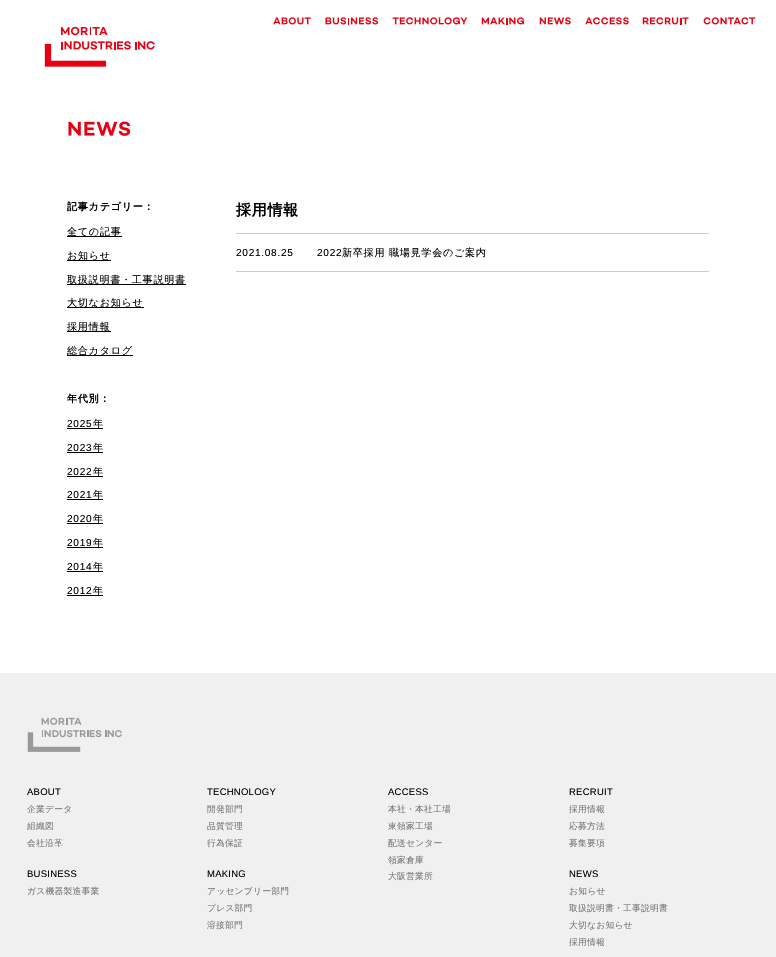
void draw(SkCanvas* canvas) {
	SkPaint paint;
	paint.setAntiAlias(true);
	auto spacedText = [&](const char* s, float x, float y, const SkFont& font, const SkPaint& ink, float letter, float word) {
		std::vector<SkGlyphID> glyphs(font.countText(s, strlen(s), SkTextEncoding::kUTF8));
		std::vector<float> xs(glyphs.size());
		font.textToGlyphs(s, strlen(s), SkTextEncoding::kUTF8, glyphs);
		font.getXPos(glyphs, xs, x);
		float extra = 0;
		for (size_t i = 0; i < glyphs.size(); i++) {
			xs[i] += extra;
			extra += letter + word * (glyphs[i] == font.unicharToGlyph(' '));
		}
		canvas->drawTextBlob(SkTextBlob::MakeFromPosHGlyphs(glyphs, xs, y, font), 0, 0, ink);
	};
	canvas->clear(0xffffffff);
	canvas->drawImageRect(SkImages::DeferredFromEncodedData(SkData::MakeFromFileName("img1.png")), SkRect::MakeXYWH(273, 17, 38, 8), SkSamplingOptions());
	canvas->drawImageRect(SkImages::DeferredFromEncodedData(SkData::MakeFromFileName("img2.png")), SkRect::MakeXYWH(325, 17, 53, 8), SkSamplingOptions());
	canvas->drawImageRect(SkImages::DeferredFromEncodedData(SkData::MakeFromFileName("img3.png")), SkRect::MakeXYWH(392, 17, 76, 8), SkSamplingOptions());
	canvas->drawImageRect(SkImages::DeferredFromEncodedData(SkData::MakeFromFileName("img4.png")), SkRect::MakeXYWH(481, 17, 44, 8), SkSamplingOptions());
	canvas->drawImageRect(SkImages::DeferredFromEncodedData(SkData::MakeFromFileName("img5.png")), SkRect::MakeXYWH(539, 17, 32, 8), SkSamplingOptions());
	canvas->drawImageRect(SkImages::DeferredFromEncodedData(SkData::MakeFromFileName("img6.png")), SkRect::MakeXYWH(585, 17, 44, 8), SkSamplingOptions());
	canvas->drawImageRect(SkImages::DeferredFromEncodedData(SkData::MakeFromFileName("img7.png")), SkRect::MakeXYWH(642, 17, 47, 8), SkSamplingOptions());
	canvas->drawImageRect(SkImages::DeferredFromEncodedData(SkData::MakeFromFileName("img8.png")), SkRect::MakeXYWH(703, 17, 53, 8), SkSamplingOptions());
	canvas->drawImageRect(SkImages::DeferredFromEncodedData(SkData::MakeFromFileName("img9.png")), SkRect::MakeXYWH(44, 26, 111, 41), SkSamplingOptions());
	canvas->drawImageRect(SkImages::DeferredFromEncodedData(SkData::MakeFromFileName("img10.png")), SkRect::MakeXYWH(68, 121, 63, 15), SkSamplingOptions());
	SkFont f1(fontMgr->matchFamilyStyle("WenQuanYi Zen Hei", SkFontStyle::Bold()), 10.1);
	f1.setSubpixel(true);
	paint.setColor(0xff000000);
	spacedText("記事カテゴリー：", 67, 210, f1, paint, 0.7, 0);
	canvas->drawRect(SkRect::MakeXYWH(67, 236, 55, 1), paint);
	SkFont f2(fontMgr->matchFamilyStyle("WenQuanYi Zen Hei", SkFontStyle(500, SkFontStyle::kNormal_Width, SkFontStyle::kUpright_Slant)), 10.1);
	f2.setSubpixel(true);
	spacedText("全ての記事", 67, 235, f2, paint, 0.7, 0);
	canvas->drawRect(SkRect::MakeXYWH(67, 260, 44, 1), paint);
	spacedText("お知らせ", 67, 259, f2, paint, 0.7, 0);
	canvas->drawRect(SkRect::MakeXYWH(67, 284, 119, 1), paint);
	spacedText("取扱説明書・工事説明書", 67, 283, f2, paint, 0.7, 0);
	canvas->drawRect(SkRect::MakeXYWH(67, 307, 77, 1), paint);
	spacedText("大切なお知らせ", 67, 306, f2, paint, 0.7, 0);
	canvas->drawRect(SkRect::MakeXYWH(67, 331, 44, 1), paint);
	spacedText("採用情報", 67, 330, f2, paint, 0.7, 0);
	canvas->drawRect(SkRect::MakeXYWH(67, 355, 66, 1), paint);
	spacedText("総合カタログ", 67, 354, f2, paint, 0.7, 0);
	spacedText("年代別：", 67, 402, f1, paint, 0.7, 0);
	SkFont f3(fontMgr->matchFamilyStyle("Liberation Sans", SkFontStyle::Normal()), 10.1);
	f3.setSubpixel(true);
	spacedText("2025", 67, 427, f3, paint, 0.7, 0);
	canvas->drawRect(SkRect::MakeXYWH(67, 428, 36, 1), paint);
	spacedText("年", 93, 427, f2, paint, 0.7, 0);
	spacedText("2023", 67, 451, f3, paint, 0.7, 0);
	canvas->drawRect(SkRect::MakeXYWH(67, 452, 36, 1), paint);
	spacedText("年", 93, 451, f2, paint, 0.7, 0);
	spacedText("2022", 67, 475, f3, paint, 0.7, 0);
	canvas->drawRect(SkRect::MakeXYWH(67, 476, 36, 1), paint);
	spacedText("年", 93, 475, f2, paint, 0.7, 0);
	spacedText("2021", 67, 498, f3, paint, 0.7, 0);
	canvas->drawRect(SkRect::MakeXYWH(67, 499, 36, 1), paint);
	spacedText("年", 93, 498, f2, paint, 0.7, 0);
	spacedText("2020", 67, 522, f3, paint, 0.7, 0);
	canvas->drawRect(SkRect::MakeXYWH(67, 523, 36, 1), paint);
	spacedText("年", 93, 522, f2, paint, 0.7, 0);
	spacedText("2019", 67, 546, f3, paint, 0.7, 0);
	canvas->drawRect(SkRect::MakeXYWH(67, 547, 36, 1), paint);
	spacedText("年", 93, 546, f2, paint, 0.7, 0);
	spacedText("2014", 67, 570, f3, paint, 0.7, 0);
	canvas->drawRect(SkRect::MakeXYWH(67, 571, 36, 1), paint);
	spacedText("年", 93, 570, f2, paint, 0.7, 0);
	spacedText("2012", 67, 594, f3, paint, 0.7, 0);
	canvas->drawRect(SkRect::MakeXYWH(67, 595, 36, 1), paint);
	spacedText("年", 93, 594, f2, paint, 0.7, 0);
	SkFont f4(fontMgr->matchFamilyStyle("WenQuanYi Zen Hei", SkFontStyle::Bold()), 15);
	f4.setSubpixel(true);
	spacedText("採用情報", 236, 215, f4, paint, 0.7, 0);
	paint.setColor(0xffcccccc);
	canvas->drawRect(SkRect::MakeXYWH(236, 233, 473, 1), paint);
	canvas->drawRect(SkRect::MakeXYWH(236, 271, 473, 1), paint);
	paint.setColor(0xff000000);
	spacedText("2021.08.25", 236, 256, f3, paint, 0.7, 0);
	spacedText("2022", 317, 256, f3, paint, 0.7, 0);
	spacedText("新卒採用 職場見学会のご案内", 342, 256, f2, paint, 0.7, 0);
	paint.setColor(0xfff0f0f0);
	canvas->drawRect(SkRect::MakeXYWH(0, 673, 776, 284), paint);
	canvas->drawImageRect(SkImages::DeferredFromEncodedData(SkData::MakeFromFileName("img11.png")), SkRect::MakeXYWH(27, 717, 95, 35), SkSamplingOptions());
	SkFont f5(fontMgr->matchFamilyStyle("Liberation Sans", SkFontStyle::Normal()), 9.5);
	f5.setSubpixel(true);
	paint.setColor(0xff000000);
	spacedText("ABOUT", 27, 795, f5, paint, 0.25, 0);
	SkFont f6(fontMgr->matchFamilyStyle("WenQuanYi Zen Hei", SkFontStyle(500, SkFontStyle::kNormal_Width, SkFontStyle::kUpright_Slant)), 8.75);
	f6.setSubpixel(true);
	paint.setColor(0xff777777);
	spacedText("企業データ", 27, 812, f6, paint, 0.25, 0);
	spacedText("組織図", 27, 829, f6, paint, 0.25, 0);
	spacedText("会社沿革", 27, 846, f6, paint, 0.25, 0);
	paint.setColor(0xff000000);
	spacedText("BUSINESS", 27, 877, f5, paint, 0.25, 0);
	paint.setColor(0xff777777);
	spacedText("ガス機器製造事業", 27, 894, f6, paint, 0.25, 0);
	paint.setColor(0xff000000);
	spacedText("TECHNOLOGY", 207, 795, f5, paint, 0.25, 0);
	paint.setColor(0xff777777);
	spacedText("開発部門", 207, 812, f6, paint, 0.25, 0);
	spacedText("品質管理", 207, 829, f6, paint, 0.25, 0);
	spacedText("行為保証", 207, 846, f6, paint, 0.25, 0);
	paint.setColor(0xff000000);
	spacedText("MAKING", 207, 877, f5, paint, 0.25, 0);
	paint.setColor(0xff777777);
	spacedText("アッセンブリー部門", 207, 894, f6, paint, 0.25, 0);
	spacedText("プレス部門", 207, 911, f6, paint, 0.25, 0);
	spacedText("溶接部門", 207, 928, f6, paint, 0.25, 0);
	paint.setColor(0xff000000);
	spacedText("ACCESS", 388, 795, f5, paint, 0.25, 0);
	paint.setColor(0xff777777);
	spacedText("本社・本社工場", 388, 812, f6, paint, 0.25, 0);
	spacedText("東領家工場", 388, 829, f6, paint, 0.25, 0);
	spacedText("配送センター", 388, 846, f6, paint, 0.25, 0);
	spacedText("領家倉庫", 388, 863, f6, paint, 0.25, 0);
	spacedText("大阪営業所", 388, 879, f6, paint, 0.25, 0);
	paint.setColor(0xff000000);
	spacedText("RECRUIT", 569, 795, f5, paint, 0.25, 0);
	paint.setColor(0xff777777);
	spacedText("採用情報", 569, 812, f6, paint, 0.25, 0);
	spacedText("応募方法", 569, 829, f6, paint, 0.25, 0);
	spacedText("募集要項", 569, 846, f6, paint, 0.25, 0);
	paint.setColor(0xff000000);
	spacedText("NEWS", 569, 877, f5, paint, 0.25, 0);
	paint.setColor(0xff777777);
	spacedText("お知らせ", 569, 894, f6, paint, 0.25, 0);
	spacedText("取扱説明書・工事説明書", 569, 911, f6, paint, 0.25, 0);
	spacedText("大切なお知らせ", 569, 928, f6, paint, 0.25, 0);
	spacedText("採用情報", 569, 945, f6, paint, 0.25, 0);
}
